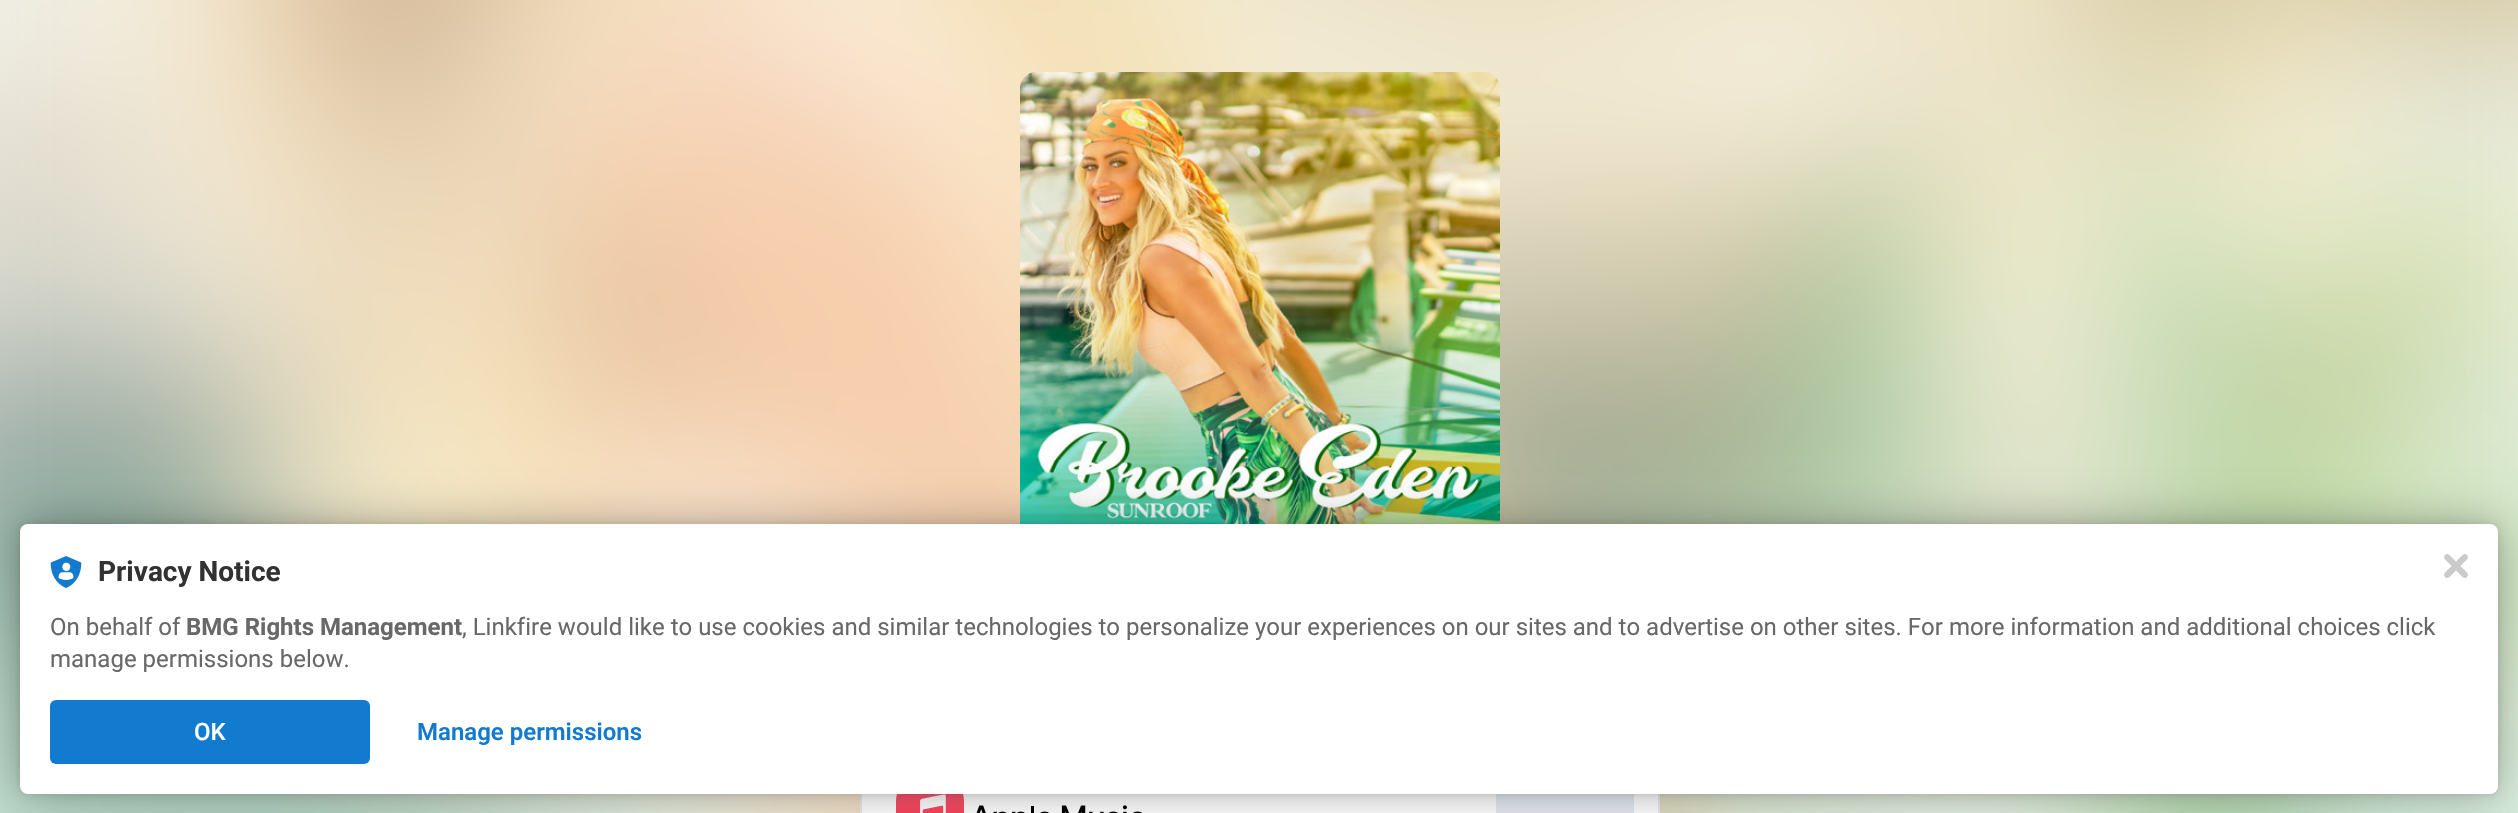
void draw(SkCanvas* canvas) {
	SkPaint paint;
	paint.setAntiAlias(true);
	canvas->clear(0xffffffff);
	canvas->drawImageRect(SkImages::DeferredFromEncodedData(SkData::MakeFromFileName("img1.png")), SkRect::MakeXYWH(0, 0, 2518, 813), SkSamplingOptions());
	canvas->drawImageRect(SkImages::DeferredFromEncodedData(SkData::MakeFromFileName("img2.png")), SkRect::MakeXYWH(1020, 72, 480, 452), SkSamplingOptions());
	paint.setStroke(true);
	paint.setStrokeWidth(2);
	paint.setColor(0xffe6eaf2);
	canvas->drawRect(SkRect::MakeXYWH(861, 745, 798, 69), paint);
	paint.setStroke(false);
	paint.setColor(0xffffffff);
	canvas->drawRect(SkRect::MakeXYWH(862, 794, 796, 19), paint);
	canvas->drawImageRect(SkImages::DeferredFromEncodedData(SkData::MakeFromFileName("img3.png")), SkRect::MakeXYWH(896, 794, 246, 19), SkSamplingOptions());
	paint.setColor(0xffe6eaf2);
	canvas->drawRect(SkRect::MakeXYWH(1496, 794, 138, 19), paint);
	paint.setColor(0x1f000000);
	paint.setMaskFilter(SkMaskFilter::MakeBlur(kNormal_SkBlurStyle, 4));
	canvas->drawRoundRect(SkRect::MakeXYWH(20, 524, 2478, 270), 8, 8, paint);
	paint.setMaskFilter(nullptr);
	paint.setColor(0x4d000000);
	paint.setMaskFilter(SkMaskFilter::MakeBlur(kNormal_SkBlurStyle, 24));
	canvas->drawRoundRect(SkRect::MakeXYWH(20, 524, 2478, 270), 8, 8, paint);
	paint.setMaskFilter(nullptr);
	paint.setColor(0xffffffff);
	canvas->drawRoundRect(SkRect::MakeXYWH(20, 524, 2478, 270), 8, 8, paint);
	canvas->drawImageRect(SkImages::DeferredFromEncodedData(SkData::MakeFromFileName("img4.png")), SkRect::MakeXYWH(50, 556, 32, 32), SkSamplingOptions());
	SkFont f1(fontMgr->matchFamilyStyle("Roboto", SkFontStyle::Bold()), 28);
	f1.setSubpixel(true);
	paint.setColor(0xff323232);
	canvas->drawString("Privacy Notice", 98, 581, f1, paint);
	SkFont f2(fontMgr->matchFamilyStyle("Roboto", SkFontStyle::Normal()), 24);
	f2.setSubpixel(true);
	paint.setColor(0xff686868);
	canvas->drawString("On behalf of", 50, 635, f2, paint);
	SkFont f3(fontMgr->matchFamilyStyle("Roboto", SkFontStyle::Bold()), 24);
	f3.setSubpixel(true);
	canvas->drawString("BMG Rights Management", 186, 635, f3, paint);
	canvas->drawString(", Linkfire would like to use cookies and similar technologies to personalize your experiences on our sites and to advertise on other sites. For more information and additional choices click", 462, 635, f2, paint);
	canvas->drawString("manage permissions below.", 50, 667, f2, paint);
	paint.setColor(0xff137bcf);
	canvas->drawRoundRect(SkRect::MakeXYWH(50, 700, 320, 64), 6, 6, paint);
	SkFont f4(fontMgr->matchFamilyStyle("Roboto", SkFontStyle(500, SkFontStyle::kNormal_Width, SkFontStyle::kUpright_Slant)), 24);
	f4.setSubpixel(true);
	paint.setColor(0xffffffff);
	canvas->drawString("OK", 194, 740, f4, paint);
	SkFont f5(fontMgr->matchFamilyStyle("Roboto", SkFontStyle(600, SkFontStyle::kNormal_Width, SkFontStyle::kUpright_Slant)), 24);
	f5.setSubpixel(true);
	paint.setColor(0xff137bcf);
	canvas->drawString("Manage permissions", 417, 740, f5, paint);
	canvas->drawImageRect(SkImages::DeferredFromEncodedData(SkData::MakeFromFileName("img5.png")), SkRect::MakeXYWH(2444, 554, 24, 24), SkSamplingOptions());
}
